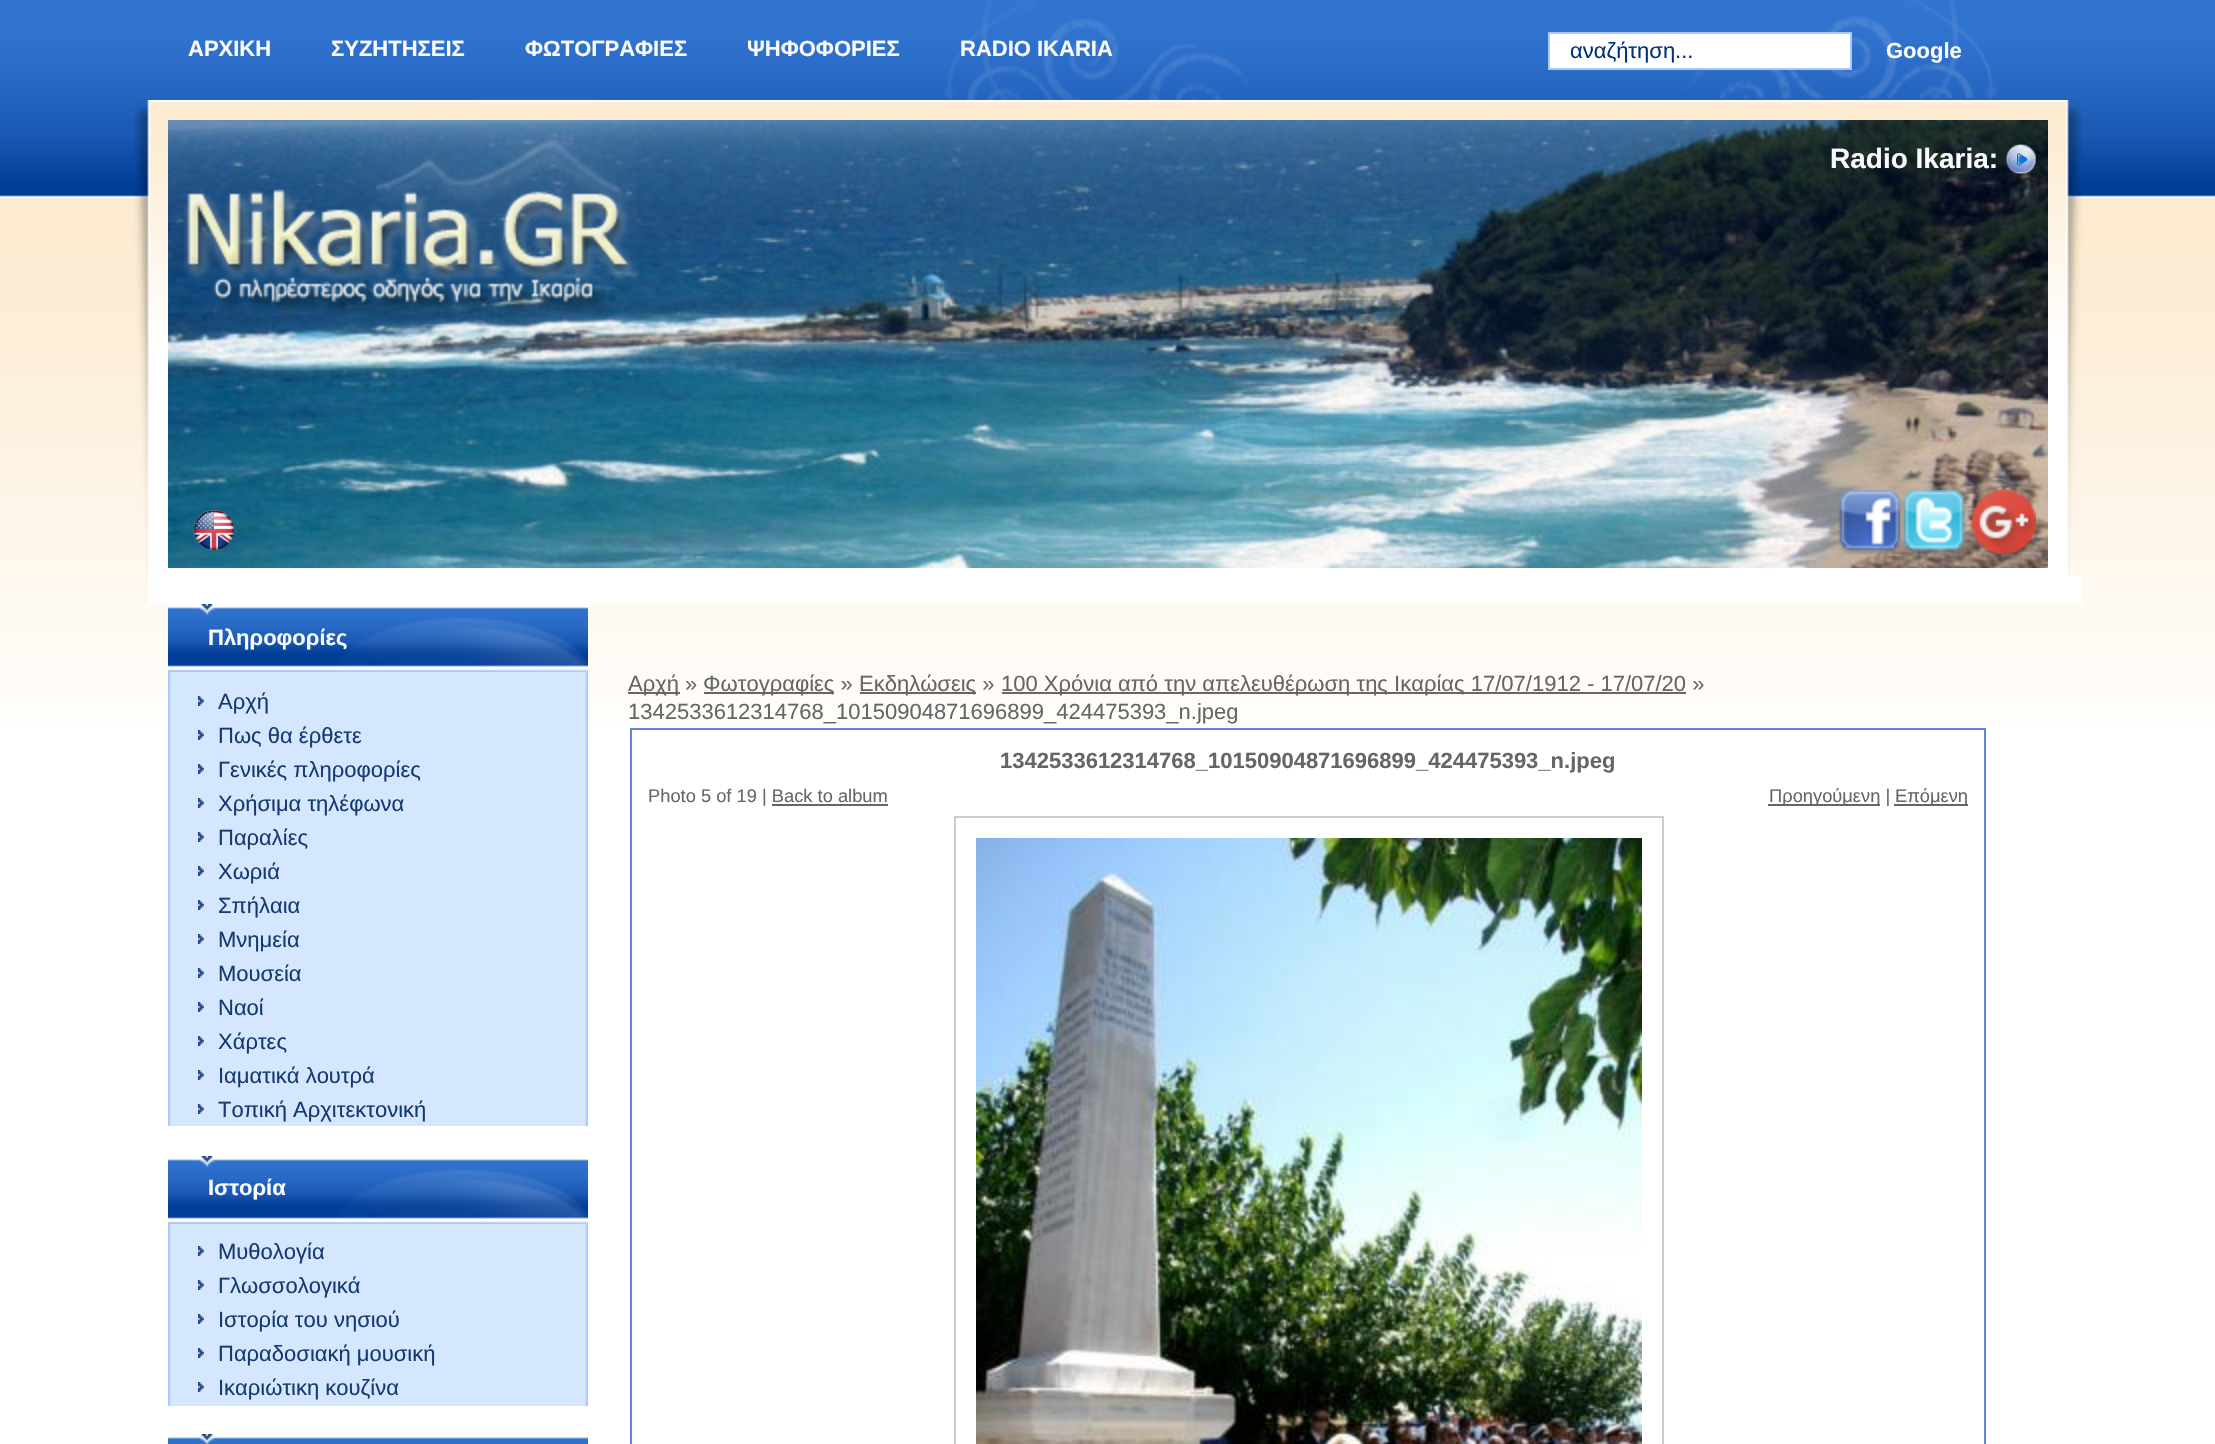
void draw(SkCanvas* canvas) {
	SkPaint paint;
	paint.setAntiAlias(true);
	canvas->clear(0xffffffff);
	canvas->drawImageRect(SkImages::DeferredFromEncodedData(SkData::MakeFromFileName("img1.png")), SkRect::MakeXYWH(0, 0, 2215, 721), SkSamplingOptions());
	canvas->drawImageRect(SkImages::DeferredFromEncodedData(SkData::MakeFromFileName("img2.png")), SkRect::MakeXYWH(943, 0, 306, 100), SkSamplingOptions());
	SkFont f1(fontMgr->matchFamilyStyle("Liberation Sans", SkFontStyle::Bold()), 22);
	f1.setSubpixel(true);
	paint.setColor(0xfffbfafa);
	canvas->drawString("ΑΡΧΙΚΗ", 188, 56, f1, paint);
	canvas->drawString("ΣΥΖΗΤΗΣΕΙΣ", 331, 56, f1, paint);
	canvas->drawString("ΦΩΤΟΓΡΑΦΙΕΣ", 525, 56, f1, paint);
	canvas->drawString("ΨΗΦΟΦΟΡΙΕΣ", 747, 56, f1, paint);
	canvas->drawString("RADIO IKARIA", 960, 56, f1, paint);
	canvas->drawImageRect(SkImages::DeferredFromEncodedData(SkData::MakeFromFileName("img3.png")), SkRect::MakeXYWH(1685, 0, 313, 99), SkSamplingOptions());
	paint.setColor(0xffffffff);
	canvas->drawRect(SkRect::MakeXYWH(1549, 33, 302, 36), paint);
	paint.setStroke(true);
	paint.setStrokeWidth(2);
	paint.setColor(0xffa8c8f7);
	canvas->drawRect(SkRect::MakeXYWH(1549, 33, 302, 36), paint);
	SkFont f2(fontMgr->matchFamilyStyle("Liberation Sans", SkFontStyle::Normal()), 22);
	f2.setSubpixel(true);
	paint.setStroke(false);
	paint.setColor(0xff013178);
	canvas->drawString("αναζήτηση...", 1570, 58, f2, paint);
	paint.setColor(0xfffbfafa);
	canvas->drawString("Google", 1886, 58, f1, paint);
	canvas->drawImageRect(SkImages::DeferredFromEncodedData(SkData::MakeFromFileName("img4.png")), SkRect::MakeXYWH(151, 100, 1931, 504), SkSamplingOptions());
	canvas->drawImageRect(SkImages::DeferredFromEncodedData(SkData::MakeFromFileName("img5.png")), SkRect::MakeXYWH(134, 100, 17, 504), SkSamplingOptions());
	canvas->drawImageRect(SkImages::DeferredFromEncodedData(SkData::MakeFromFileName("img6.png")), SkRect::MakeXYWH(2065, 100, 17, 476), SkSamplingOptions());
	canvas->drawImageRect(SkImages::DeferredFromEncodedData(SkData::MakeFromFileName("img8.png")), SkRect::MakeXYWH(168, 120, 1880, 448), SkSamplingOptions());
	canvas->drawImageRect(SkImages::DeferredFromEncodedData(SkData::MakeFromFileName("img7.png")), SkRect::MakeXYWH(184, 97, 453, 217), SkSamplingOptions());
	SkFont f3(fontMgr->matchFamilyStyle("Liberation Sans", SkFontStyle::Bold()), 28);
	f3.setSubpixel(true);
	canvas->drawString("Radio Ikaria:", 1830, 168, f3, paint);
	canvas->drawImageRect(SkImages::DeferredFromEncodedData(SkData::MakeFromFileName("img9.png")), SkRect::MakeXYWH(2006, 144, 30, 30), SkSamplingOptions());
	canvas->drawImageRect(SkImages::DeferredFromEncodedData(SkData::MakeFromFileName("img10.png")), SkRect::MakeXYWH(194, 510, 40, 40), SkSamplingOptions());
	canvas->drawImageRect(SkImages::DeferredFromEncodedData(SkData::MakeFromFileName("img11.png")), SkRect::MakeXYWH(1838, 490, 64, 64), SkSamplingOptions());
	canvas->drawImageRect(SkImages::DeferredFromEncodedData(SkData::MakeFromFileName("img12.png")), SkRect::MakeXYWH(1902, 490, 64, 64), SkSamplingOptions());
	canvas->drawImageRect(SkImages::DeferredFromEncodedData(SkData::MakeFromFileName("img13.png")), SkRect::MakeXYWH(1972, 490, 64, 64), SkSamplingOptions());
	canvas->drawImageRect(SkImages::DeferredFromEncodedData(SkData::MakeFromFileName("img14.png")), SkRect::MakeXYWH(168, 672, 420, 454), SkSamplingOptions());
	canvas->drawImageRect(SkImages::DeferredFromEncodedData(SkData::MakeFromFileName("img15.png")), SkRect::MakeXYWH(168, 604, 420, 68), SkSamplingOptions());
	canvas->drawString("Πληροφορίες", 208, 645, f1, paint);
	canvas->drawImageRect(SkImages::DeferredFromEncodedData(SkData::MakeFromFileName("img16.png")), SkRect::MakeXYWH(198, 696, 6, 10), SkSamplingOptions());
	paint.setColor(0xff153a71);
	canvas->drawString("Αρχή", 218, 709, f2, paint);
	canvas->drawImageRect(SkImages::DeferredFromEncodedData(SkData::MakeFromFileName("img16.png")), SkRect::MakeXYWH(198, 730, 6, 10), SkSamplingOptions());
	canvas->drawString("Πως θα έρθετε", 218, 743, f2, paint);
	canvas->drawImageRect(SkImages::DeferredFromEncodedData(SkData::MakeFromFileName("img16.png")), SkRect::MakeXYWH(198, 764, 6, 10), SkSamplingOptions());
	canvas->drawString("Γενικές πληροφορίες", 218, 777, f2, paint);
	canvas->drawImageRect(SkImages::DeferredFromEncodedData(SkData::MakeFromFileName("img16.png")), SkRect::MakeXYWH(198, 798, 6, 10), SkSamplingOptions());
	canvas->drawString("Χρήσιμα τηλέφωνα", 218, 811, f2, paint);
	canvas->drawImageRect(SkImages::DeferredFromEncodedData(SkData::MakeFromFileName("img16.png")), SkRect::MakeXYWH(198, 832, 6, 10), SkSamplingOptions());
	canvas->drawString("Παραλίες", 218, 845, f2, paint);
	canvas->drawImageRect(SkImages::DeferredFromEncodedData(SkData::MakeFromFileName("img16.png")), SkRect::MakeXYWH(198, 866, 6, 10), SkSamplingOptions());
	canvas->drawString("Χωριά", 218, 879, f2, paint);
	canvas->drawImageRect(SkImages::DeferredFromEncodedData(SkData::MakeFromFileName("img16.png")), SkRect::MakeXYWH(198, 900, 6, 10), SkSamplingOptions());
	canvas->drawString("Σπήλαια", 218, 913, f2, paint);
	canvas->drawImageRect(SkImages::DeferredFromEncodedData(SkData::MakeFromFileName("img16.png")), SkRect::MakeXYWH(198, 934, 6, 10), SkSamplingOptions());
	canvas->drawString("Μνημεία", 218, 947, f2, paint);
	canvas->drawImageRect(SkImages::DeferredFromEncodedData(SkData::MakeFromFileName("img16.png")), SkRect::MakeXYWH(198, 968, 6, 10), SkSamplingOptions());
	canvas->drawString("Μουσεία", 218, 981, f2, paint);
	canvas->drawImageRect(SkImages::DeferredFromEncodedData(SkData::MakeFromFileName("img16.png")), SkRect::MakeXYWH(198, 1002, 6, 10), SkSamplingOptions());
	canvas->drawString("Ναοί", 218, 1015, f2, paint);
	canvas->drawImageRect(SkImages::DeferredFromEncodedData(SkData::MakeFromFileName("img16.png")), SkRect::MakeXYWH(198, 1036, 6, 10), SkSamplingOptions());
	canvas->drawString("Χάρτες", 218, 1049, f2, paint);
	canvas->drawImageRect(SkImages::DeferredFromEncodedData(SkData::MakeFromFileName("img16.png")), SkRect::MakeXYWH(198, 1070, 6, 10), SkSamplingOptions());
	canvas->drawString("Ιαματικά λουτρά", 218, 1083, f2, paint);
	canvas->drawImageRect(SkImages::DeferredFromEncodedData(SkData::MakeFromFileName("img16.png")), SkRect::MakeXYWH(198, 1104, 6, 10), SkSamplingOptions());
	canvas->drawString("Τοπική Αρχιτεκτονική", 218, 1117, f2, paint);
	canvas->drawImageRect(SkImages::DeferredFromEncodedData(SkData::MakeFromFileName("img17.png")), SkRect::MakeXYWH(168, 1224, 420, 182), SkSamplingOptions());
	canvas->drawImageRect(SkImages::DeferredFromEncodedData(SkData::MakeFromFileName("img15.png")), SkRect::MakeXYWH(168, 1156, 420, 68), SkSamplingOptions());
	paint.setColor(0xfffbfafa);
	canvas->drawString("Ιστορία", 208, 1195, f1, paint);
	canvas->drawImageRect(SkImages::DeferredFromEncodedData(SkData::MakeFromFileName("img16.png")), SkRect::MakeXYWH(198, 1246, 6, 10), SkSamplingOptions());
	paint.setColor(0xff153a71);
	canvas->drawString("Μυθολογία", 218, 1259, f2, paint);
	canvas->drawImageRect(SkImages::DeferredFromEncodedData(SkData::MakeFromFileName("img16.png")), SkRect::MakeXYWH(198, 1280, 6, 10), SkSamplingOptions());
	canvas->drawString("Γλωσσολογικά", 218, 1293, f2, paint);
	canvas->drawImageRect(SkImages::DeferredFromEncodedData(SkData::MakeFromFileName("img16.png")), SkRect::MakeXYWH(198, 1314, 6, 10), SkSamplingOptions());
	canvas->drawString("Ιστορία του νησιού", 218, 1327, f2, paint);
	canvas->drawImageRect(SkImages::DeferredFromEncodedData(SkData::MakeFromFileName("img16.png")), SkRect::MakeXYWH(198, 1348, 6, 10), SkSamplingOptions());
	canvas->drawString("Παραδοσιακή μουσική", 218, 1361, f2, paint);
	canvas->drawImageRect(SkImages::DeferredFromEncodedData(SkData::MakeFromFileName("img16.png")), SkRect::MakeXYWH(198, 1382, 6, 10), SkSamplingOptions());
	canvas->drawString("Ικαριώτικη κουζίνα", 218, 1395, f2, paint);
	canvas->drawImageRect(SkImages::DeferredFromEncodedData(SkData::MakeFromFileName("img18.png")), SkRect::MakeXYWH(168, 1434, 420, 10), SkSamplingOptions());
	paint.setColor(0xff666666);
	canvas->drawRect(SkRect::MakeXYWH(628, 692, 52, 2), paint);
	canvas->drawString("Αρχή »", 628, 691, f2, paint);
	canvas->drawRect(SkRect::MakeXYWH(704, 692, 130, 2), paint);
	canvas->drawString("Φωτογραφίες »", 703, 691, f2, paint);
	canvas->drawRect(SkRect::MakeXYWH(860, 692, 116, 2), paint);
	canvas->drawString("Εκδηλώσεις »", 859, 691, f2, paint);
	canvas->drawRect(SkRect::MakeXYWH(1002, 692, 684, 2), paint);
	canvas->drawString("100 Χρόνια από την απελευθέρωση της Ικαρίας 17/07/1912 - 17/07/20 »", 1001, 691, f2, paint);
	canvas->drawString("1342533612314768_10150904871696899_424475393_n.jpeg", 628, 719, f2, paint);
	paint.setStroke(true);
	paint.setColor(0xff6384de);
	canvas->drawRect(SkRect::MakeXYWH(631, 729, 1354, 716), paint);
	paint.setStroke(false);
	paint.setColor(0xff666666);
	canvas->drawString("1342533612314768_10150904871696899_424475393_n.jpeg", 1000, 768, f1, paint);
	SkFont f4(fontMgr->matchFamilyStyle("Liberation Sans", SkFontStyle::Normal()), 18.3);
	f4.setSubpixel(true);
	canvas->drawString("Photo 5 of 19 | Back to album", 648, 802, f4, paint);
	canvas->drawRect(SkRect::MakeXYWH(772, 804, 116, 2), paint);
	canvas->drawRect(SkRect::MakeXYWH(1768, 804, 112, 2), paint);
	canvas->drawString("Προηγούμενη |", 1769, 802, f4, paint);
	canvas->drawRect(SkRect::MakeXYWH(1894, 804, 74, 2), paint);
	canvas->drawString("Επόμενη", 1895, 802, f4, paint);
	paint.setStroke(true);
	paint.setColor(0xffcccccc);
	canvas->drawRect(SkRect::MakeXYWH(955, 817, 708, 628), paint);
	canvas->drawImageRect(SkImages::DeferredFromEncodedData(SkData::MakeFromFileName("img19.png")), SkRect::MakeXYWH(976, 838, 666, 606), SkSamplingOptions());
}
